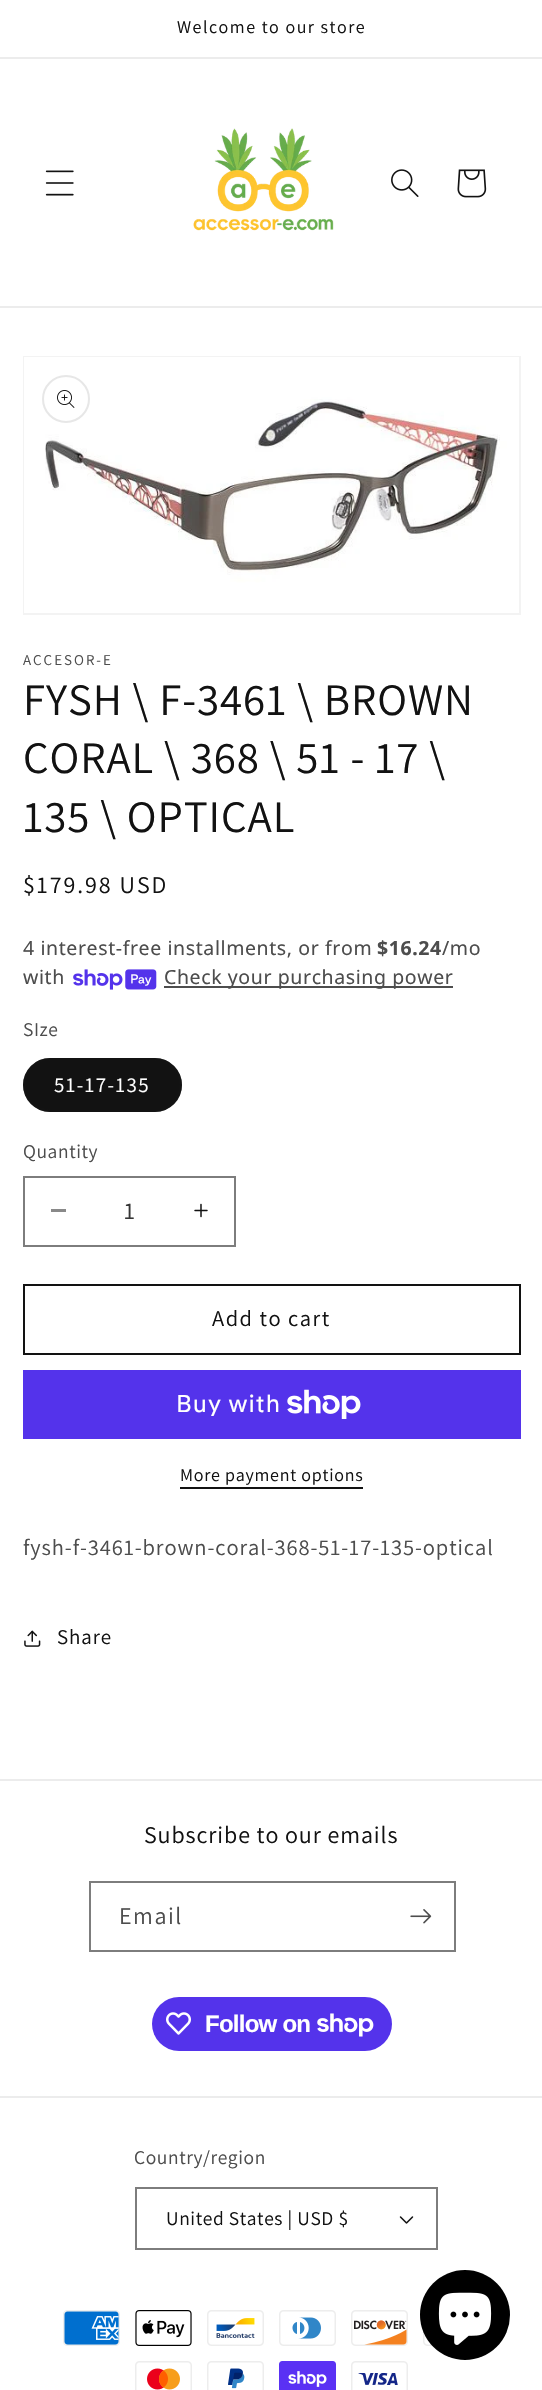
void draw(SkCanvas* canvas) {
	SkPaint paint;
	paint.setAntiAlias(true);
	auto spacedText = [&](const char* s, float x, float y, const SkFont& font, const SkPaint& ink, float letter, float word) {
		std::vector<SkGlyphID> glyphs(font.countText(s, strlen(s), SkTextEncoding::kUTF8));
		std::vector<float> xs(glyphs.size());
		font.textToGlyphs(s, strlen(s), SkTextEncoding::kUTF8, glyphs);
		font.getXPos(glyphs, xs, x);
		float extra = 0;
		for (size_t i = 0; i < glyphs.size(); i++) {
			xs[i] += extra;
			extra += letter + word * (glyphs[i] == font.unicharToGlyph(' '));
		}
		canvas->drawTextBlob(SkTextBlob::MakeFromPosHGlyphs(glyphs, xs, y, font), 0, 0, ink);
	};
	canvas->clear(0xffffffff);
	paint.setColor(0xffececec);
	canvas->drawRect(SkRect::MakeXYWH(0, 57, 542, 2), paint);
	SkFont f1(fontMgr->matchFamilyStyle("Assistant", SkFontStyle::Normal()), 18);
	f1.setSubpixel(true);
	paint.setColor(0xff121212);
	spacedText("Welcome to our store", 177, 33, f1, paint, 1.5, 0);
	paint.setColor(0xffececec);
	canvas->drawRect(SkRect::MakeXYWH(0, 306, 542, 2), paint);
	canvas->drawImageRect(SkImages::DeferredFromEncodedData(SkData::MakeFromFileName("img1.png")), SkRect::MakeXYWH(45, 170, 29, 26), SkSamplingOptions());
	canvas->drawImageRect(SkImages::DeferredFromEncodedData(SkData::MakeFromFileName("img2.png")), SkRect::MakeXYWH(193, 128, 141, 103), SkSamplingOptions());
	canvas->drawImageRect(SkImages::DeferredFromEncodedData(SkData::MakeFromFileName("img3.png")), SkRect::MakeXYWH(391, 169, 28, 28), SkSamplingOptions());
	canvas->drawImageRect(SkImages::DeferredFromEncodedData(SkData::MakeFromFileName("img4.png")), SkRect::MakeXYWH(457, 169, 30, 29), SkSamplingOptions());
	paint.setStroke(true);
	paint.setStrokeWidth(2);
	paint.setColor(0xfff3f3f3);
	canvas->drawRect(SkRect::MakeXYWH(24, 357, 496, 257), paint);
	canvas->drawImageRect(SkImages::DeferredFromEncodedData(SkData::MakeFromFileName("img5.png")), SkRect::MakeXYWH(24, 357, 495, 256), SkSamplingOptions());
	paint.setColor(0xffe7e7e7);
	canvas->drawCircle(66, 399, 23, paint);
	canvas->drawImageRect(SkImages::DeferredFromEncodedData(SkData::MakeFromFileName("img6.png")), SkRect::MakeXYWH(57, 390, 18, 18), SkSamplingOptions());
	SkFont f2(fontMgr->matchFamilyStyle("Assistant", SkFontStyle::Normal()), 15);
	f2.setSubpixel(true);
	paint.setStroke(false);
	paint.setColor(0xff4d4d4d);
	spacedText("ACCESOR-E", 23, 665, f2, paint, 2, 0);
	SkFont f3(fontMgr->matchFamilyStyle("Assistant", SkFontStyle::Normal()), 45);
	f3.setSubpixel(true);
	paint.setColor(0xff121212);
	spacedText("FYSH \\ F-3461 \\ BROWN", 23, 715, f3, paint, 0.9, 0);
	spacedText("CORAL \\ 368 \\ 51 - 17 \\", 23, 773, f3, paint, 0.9, 0);
	spacedText("135 \\ OPTICAL", 23, 832, f3, paint, 0.9, 0);
	SkFont f4(fontMgr->matchFamilyStyle("Assistant", SkFontStyle::Normal()), 24);
	f4.setSubpixel(true);
	spacedText("$179.98 USD", 23, 893, f4, paint, 2, 0);
	SkFont f5(fontMgr->matchFamilyStyle("Noto Sans", SkFontStyle::Normal()), 19.5);
	f5.setSubpixel(true);
	paint.setColor(0xff4d4d4d);
	spacedText("4 interest-free installments, or from", 23, 955, f5, paint, 0.6, 0);
	SkFont f6(fontMgr->matchFamilyStyle("Noto Sans", SkFontStyle::Bold()), 19.5);
	f6.setSubpixel(true);
	spacedText("$16.24", 377, 955, f6, paint, 0.6, 0);
	spacedText("/mo", 442, 955, f5, paint, 0.6, 0);
	spacedText("with", 23, 984, f5, paint, 0.6, 0);
	canvas->drawImageRect(SkImages::DeferredFromEncodedData(SkData::MakeFromFileName("img7.png")), SkRect::MakeXYWH(73, 969, 84, 21), SkSamplingOptions());
	canvas->drawRect(SkRect::MakeXYWH(164, 986, 289, 2), paint);
	spacedText("Check your purchasing power", 164, 984, f5, paint, 0.6, 0);
	SkFont f7(fontMgr->matchFamilyStyle("Assistant", SkFontStyle::Normal()), 19.5);
	f7.setSubpixel(true);
	spacedText("SIze", 23, 1036, f7, paint, 0.6, 0);
	paint.setColor(0xff121212);
	canvas->drawRoundRect(SkRect::MakeXYWH(23, 1058, 159, 54), 27, 27, paint);
	paint.setStroke(true);
	paint.setColor(0x8c121212);
	canvas->drawRoundRect(SkRect::MakeXYWH(24, 1059, 157, 52), 26, 26, paint);
	SkFont f8(fontMgr->matchFamilyStyle("Assistant", SkFontStyle::Normal()), 21);
	f8.setSubpixel(true);
	paint.setStroke(false);
	paint.setColor(0xffffffff);
	spacedText("51-17-135", 54, 1092, f8, paint, 1.5, 0);
	paint.setColor(0xff4d4d4d);
	spacedText("Quantity", 23, 1158, f7, paint, 0.6, 0);
	paint.setColor(0xff898989);
	canvas->drawRect(SkRect::MakeXYWH(51, 1209, 15, 3), paint);
	canvas->drawImageRect(SkImages::DeferredFromEncodedData(SkData::MakeFromFileName("img8.png")), SkRect::MakeXYWH(194, 1203, 14, 15), SkSamplingOptions());
	paint.setStroke(true);
	paint.setColor(0xff7d7d7d);
	canvas->drawRect(SkRect::MakeXYWH(24, 1177, 211, 69), paint);
	paint.setStroke(false);
	paint.setColor(0xff363636);
	canvas->drawString("1", 124, 1219, f4, paint);
	paint.setStroke(true);
	paint.setColor(0xff121212);
	canvas->drawRect(SkRect::MakeXYWH(24, 1285, 496, 69), paint);
	SkFont f9(fontMgr->matchFamilyStyle("Assistant", SkFontStyle::Normal()), 22.5);
	f9.setSubpixel(true);
	paint.setStroke(false);
	spacedText("Add to cart", 212, 1326, f9, paint, 1.5, 0);
	paint.setColor(0xff5433eb);
	canvas->drawRect(SkRect::MakeXYWH(23, 1370, 498, 69), paint);
	SkFont f10(fontMgr->matchFamilyStyle("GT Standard", SkFontStyle::Normal()), 24);
	f10.setSubpixel(true);
	paint.setColor(0xffffffff);
	spacedText("Buy with", 176, 1412, f10, paint, 0.9, 0);
	canvas->drawImageRect(SkImages::DeferredFromEncodedData(SkData::MakeFromFileName("img9.png")), SkRect::MakeXYWH(287, 1389, 74, 30), SkSamplingOptions());
	paint.setColor(0xff121212);
	spacedText("More payment options", 180, 1481, f1, paint, 0.75, 0);
	canvas->drawRect(SkRect::MakeXYWH(180, 1487, 183, 2), paint);
	paint.setColor(0xff4d4d4d);
	spacedText("fysh-f-3461-brown-coral-368-51-17-135-optical", 23, 1555, f9, paint, 0.9, 0);
	canvas->drawImageRect(SkImages::DeferredFromEncodedData(SkData::MakeFromFileName("img10.png")), SkRect::MakeXYWH(24, 1630, 17, 17), SkSamplingOptions());
	paint.setColor(0xff121212);
	spacedText("Share", 57, 1644, f8, paint, 0.9, 0);
	paint.setColor(0xffececec);
	canvas->drawRect(SkRect::MakeXYWH(0, 1779, 542, 2), paint);
	paint.setColor(0xff121212);
	spacedText("Subscribe to our emails", 144, 1843, f4, paint, 0.9, 0);
	paint.setStroke(true);
	paint.setColor(0xff7d7d7d);
	canvas->drawRect(SkRect::MakeXYWH(90, 1882, 365, 69), paint);
	paint.setStroke(false);
	paint.setColor(0xff4d4d4d);
	spacedText("Email", 119, 1924, f4, paint, 1.5, 0);
	canvas->drawImageRect(SkImages::DeferredFromEncodedData(SkData::MakeFromFileName("img11.png")), SkRect::MakeXYWH(410, 1909, 22, 15), SkSamplingOptions());
	paint.setColor(0xff5433eb);
	canvas->drawRoundRect(SkRect::MakeXYWH(152, 1997, 240, 54), 27, 27, paint);
	canvas->drawImageRect(SkImages::DeferredFromEncodedData(SkData::MakeFromFileName("img12.png")), SkRect::MakeXYWH(166, 2012, 25, 23), SkSamplingOptions());
	SkFont f11(fontMgr->matchFamilyStyle("Liberation Sans", SkFontStyle::Bold()), 24);
	f11.setSubpixel(true);
	paint.setColor(0xffffffff);
	spacedText("Follow on", 205, 2032, f11, paint, -0.75, 0);
	canvas->drawImageRect(SkImages::DeferredFromEncodedData(SkData::MakeFromFileName("img13.png")), SkRect::MakeXYWH(317, 2013, 57, 24), SkSamplingOptions());
	paint.setColor(0xffececec);
	canvas->drawRect(SkRect::MakeXYWH(0, 2096, 542, 2), paint);
	paint.setColor(0xff4d4d4d);
	spacedText("Country/region", 134, 2164, f7, paint, 0.6, 0);
	canvas->drawImageRect(SkImages::DeferredFromEncodedData(SkData::MakeFromFileName("img14.png")), SkRect::MakeXYWH(399, 2216, 15, 8), SkSamplingOptions());
	paint.setStroke(true);
	paint.setColor(0xff7d7d7d);
	canvas->drawRect(SkRect::MakeXYWH(136, 2188, 301, 61), paint);
	paint.setStroke(false);
	paint.setColor(0xff121212);
	spacedText("United States | USD $", 166, 2225, f7, paint, 0.6, 0);
	canvas->drawImageRect(SkImages::DeferredFromEncodedData(SkData::MakeFromFileName("img15.png")), SkRect::MakeXYWH(63, 2310, 57, 36), SkSamplingOptions());
	canvas->drawImageRect(SkImages::DeferredFromEncodedData(SkData::MakeFromFileName("img16.png")), SkRect::MakeXYWH(135, 2310, 57, 36), SkSamplingOptions());
	canvas->drawImageRect(SkImages::DeferredFromEncodedData(SkData::MakeFromFileName("img17.png")), SkRect::MakeXYWH(207, 2310, 57, 36), SkSamplingOptions());
	canvas->drawImageRect(SkImages::DeferredFromEncodedData(SkData::MakeFromFileName("img18.png")), SkRect::MakeXYWH(279, 2310, 57, 36), SkSamplingOptions());
	canvas->drawImageRect(SkImages::DeferredFromEncodedData(SkData::MakeFromFileName("img19.png")), SkRect::MakeXYWH(351, 2310, 57, 36), SkSamplingOptions());
	canvas->drawImageRect(SkImages::DeferredFromEncodedData(SkData::MakeFromFileName("img20.png")), SkRect::MakeXYWH(423, 2331, 10, 15), SkSamplingOptions());
	canvas->drawImageRect(SkImages::DeferredFromEncodedData(SkData::MakeFromFileName("img21.png")), SkRect::MakeXYWH(135, 2361, 57, 29), SkSamplingOptions());
	canvas->drawImageRect(SkImages::DeferredFromEncodedData(SkData::MakeFromFileName("img22.png")), SkRect::MakeXYWH(207, 2361, 57, 29), SkSamplingOptions());
	canvas->drawImageRect(SkImages::DeferredFromEncodedData(SkData::MakeFromFileName("img23.png")), SkRect::MakeXYWH(279, 2361, 57, 29), SkSamplingOptions());
	canvas->drawImageRect(SkImages::DeferredFromEncodedData(SkData::MakeFromFileName("img24.png")), SkRect::MakeXYWH(351, 2361, 57, 29), SkSamplingOptions());
	paint.setColor(0xff000000);
	canvas->drawCircle(465, 2315, 45, paint);
	canvas->drawImageRect(SkImages::DeferredFromEncodedData(SkData::MakeFromFileName("img25.png")), SkRect::MakeXYWH(438, 2292, 54, 53), SkSamplingOptions());
}
